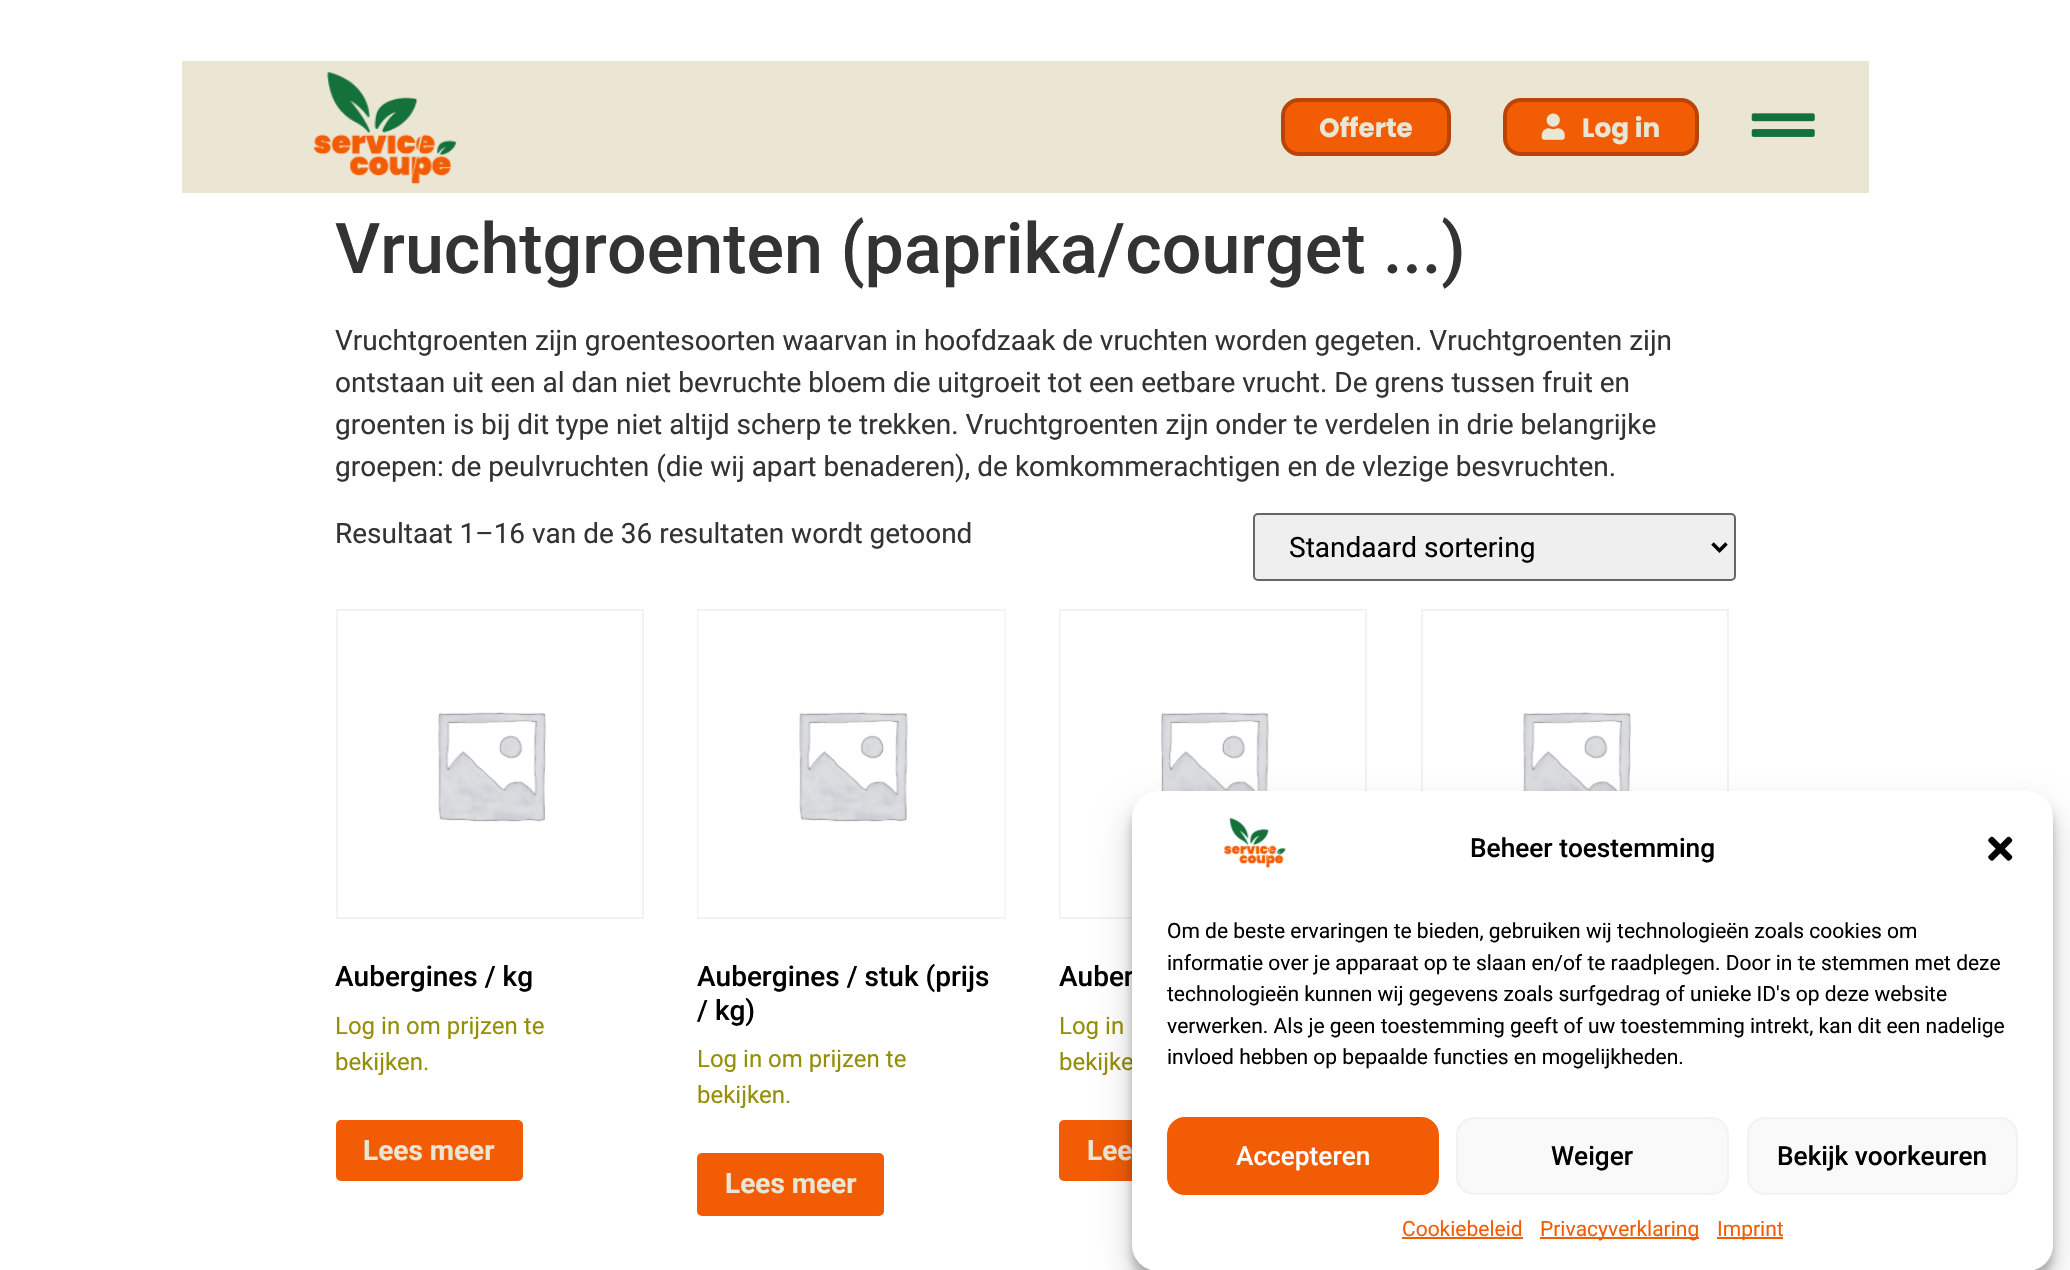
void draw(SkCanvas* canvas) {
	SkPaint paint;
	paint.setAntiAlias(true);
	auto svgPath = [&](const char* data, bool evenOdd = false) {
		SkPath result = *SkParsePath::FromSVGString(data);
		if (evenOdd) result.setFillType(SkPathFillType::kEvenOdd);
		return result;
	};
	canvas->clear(0xffffffff);
	paint.setColor(0xffebe6d3);
	canvas->drawRect(SkRect::MakeXYWH(182, 61, 1687, 132), paint);
	canvas->drawImageRect(SkImages::DeferredFromEncodedData(SkData::MakeFromFileName("img1.png")), SkRect::MakeXYWH(313, 72, 144, 112), SkSamplingOptions());
	paint.setColor(0xfff25c05);
	canvas->drawRoundRect(SkRect::MakeXYWH(1283, 100, 166, 54), 16, 16, paint);
	paint.setStroke(true);
	paint.setStrokeWidth(4);
	paint.setColor(0xffba4308);
	canvas->drawRoundRect(SkRect::MakeXYWH(1283, 100, 166, 54), 16, 16, paint);
	SkFont f1(fontMgr->matchFamilyStyle("Poppins", SkFontStyle::Bold()), 26.25);
	f1.setSubpixel(true);
	paint.setStroke(false);
	paint.setColor(0xffebe6d3);
	canvas->drawString("Offerte", 1319, 137, f1, paint);
	paint.setColor(0xfff25c05);
	canvas->drawRoundRect(SkRect::MakeXYWH(1505, 100, 192, 54), 16, 16, paint);
	paint.setStroke(true);
	paint.setColor(0xffba4308);
	canvas->drawRoundRect(SkRect::MakeXYWH(1505, 100, 192, 54), 16, 16, paint);
	canvas->drawImageRect(SkImages::DeferredFromEncodedData(SkData::MakeFromFileName("img2.png")), SkRect::MakeXYWH(1541, 113, 24, 27), SkSamplingOptions());
	paint.setStroke(false);
	paint.setColor(0xffebe6d3);
	canvas->drawString("Log in", 1582, 137, f1, paint);
	canvas->drawImageRect(SkImages::DeferredFromEncodedData(SkData::MakeFromFileName("img3.png")), SkRect::MakeXYWH(1751, 113, 64, 24), SkSamplingOptions());
	SkFont f2(fontMgr->matchFamilyStyle("Roboto", SkFontStyle(500, SkFontStyle::kNormal_Width, SkFontStyle::kUpright_Slant)), 70);
	f2.setSubpixel(true);
	paint.setColor(0xff333333);
	canvas->drawString("Vruchtgroenten (paprika/courget ...)", 335, 273, f2, paint);
	SkFont f3(fontMgr->matchFamilyStyle("Roboto", SkFontStyle::Normal()), 28);
	f3.setSubpixel(true);
	canvas->drawString("Vruchtgroenten zijn groentesoorten waarvan in hoofdzaak de vruchten worden gegeten. Vruchtgroenten zijn", 335, 350, f3, paint);
	canvas->drawString("ontstaan uit een al dan niet bevruchte bloem die uitgroeit tot een eetbare vrucht. De grens tussen fruit en", 335, 392, f3, paint);
	canvas->drawString("groenten is bij dit type niet altijd scherp te trekken. Vruchtgroenten zijn onder te verdelen in drie belangrijke", 335, 434, f3, paint);
	canvas->drawString("groepen: de peulvruchten (die wij apart benaderen), de komkommerachtigen en de vlezige besvruchten.", 335, 476, f3, paint);
	canvas->drawString("Resultaat 1–16 van de 36 resultaten wordt getoond", 335, 543, f3, paint);
	paint.setColor(0xffefefef);
	canvas->drawRoundRect(SkRect::MakeXYWH(1254, 514, 481, 66), 4, 4, paint);
	paint.setStroke(true);
	paint.setStrokeWidth(2);
	paint.setColor(0xff666666);
	canvas->drawRoundRect(SkRect::MakeXYWH(1254, 514, 481, 66), 4, 4, paint);
	paint.setStrokeWidth(3.5);
	paint.setColor(0xff000000);
	canvas->drawPath(svgPath("M1712.5 543.5L1719.5 550.5L1726.5 543.5"), paint);
	paint.setStroke(false);
	canvas->drawString("Standaard sortering", 1289, 557, f3, paint);
	paint.setStroke(true);
	paint.setStrokeWidth(2);
	paint.setColor(0xfff2f2f2);
	canvas->drawRect(SkRect::MakeXYWH(1422, 610, 306, 308), paint);
	canvas->drawImageRect(SkImages::DeferredFromEncodedData(SkData::MakeFromFileName("img4.png")), SkRect::MakeXYWH(1523, 712, 108, 79), SkSamplingOptions());
	canvas->drawRect(SkRect::MakeXYWH(337, 610, 306, 308), paint);
	canvas->drawImageRect(SkImages::DeferredFromEncodedData(SkData::MakeFromFileName("img5.png")), SkRect::MakeXYWH(438, 712, 108, 110), SkSamplingOptions());
	SkFont f4(fontMgr->matchFamilyStyle("Roboto", SkFontStyle(500, SkFontStyle::kNormal_Width, SkFontStyle::kUpright_Slant)), 28);
	f4.setSubpixel(true);
	paint.setStroke(false);
	paint.setColor(0xff000000);
	canvas->drawString("Aubergines / kg", 335, 986, f4, paint);
	SkFont f5(fontMgr->matchFamilyStyle("Roboto", SkFontStyle::Normal()), 24);
	f5.setSubpixel(true);
	paint.setColor(0xff958e09);
	canvas->drawString("Log in om prijzen te", 335, 1034, f5, paint);
	canvas->drawString("bekijken.", 335, 1070, f5, paint);
	paint.setColor(0xfff25c05);
	canvas->drawRoundRect(SkRect::MakeXYWH(336, 1120, 187, 61), 5, 5, paint);
	SkFont f6(fontMgr->matchFamilyStyle("Roboto", SkFontStyle::Bold()), 28);
	f6.setSubpixel(true);
	paint.setColor(0xffebe6d3);
	canvas->drawString("Lees meer", 363, 1160, f6, paint);
	paint.setStroke(true);
	paint.setColor(0xfff2f2f2);
	canvas->drawRect(SkRect::MakeXYWH(698, 610, 307, 308), paint);
	canvas->drawImageRect(SkImages::DeferredFromEncodedData(SkData::MakeFromFileName("img6.png")), SkRect::MakeXYWH(698, 611, 307, 306), SkSamplingOptions());
	paint.setStroke(false);
	paint.setColor(0xff000000);
	canvas->drawString("Aubergines / stuk (prijs", 697, 986, f4, paint);
	canvas->drawString("/ kg)", 697, 1020, f4, paint);
	paint.setColor(0xff958e09);
	canvas->drawString("Log in om prijzen te", 697, 1067, f5, paint);
	canvas->drawString("bekijken.", 697, 1103, f5, paint);
	paint.setColor(0xfff25c05);
	canvas->drawRoundRect(SkRect::MakeXYWH(697, 1153, 187, 63), 5, 5, paint);
	paint.setColor(0xffebe6d3);
	canvas->drawString("Lees meer", 725, 1193, f6, paint);
	paint.setStroke(true);
	paint.setColor(0xfff2f2f2);
	canvas->drawRect(SkRect::MakeXYWH(1060, 610, 306, 308), paint);
	canvas->drawImageRect(SkImages::DeferredFromEncodedData(SkData::MakeFromFileName("img7.png")), SkRect::MakeXYWH(1060, 611, 209, 306), SkSamplingOptions());
	paint.setStroke(false);
	paint.setColor(0xff000000);
	canvas->drawString("Auber", 1059, 986, f4, paint);
	paint.setColor(0xff958e09);
	canvas->drawString("Log in", 1059, 1034, f5, paint);
	canvas->drawString("bekijke", 1059, 1070, f5, paint);
	paint.setColor(0xfff25c05);
	canvas->drawRoundRect(SkRect::MakeXYWH(1059, 1120, 187, 61), 5, 5, paint);
	paint.setColor(0xffebe6d3);
	canvas->drawString("Lee", 1087, 1160, f6, paint);
	paint.setColor(0x3b000000);
	paint.setMaskFilter(SkMaskFilter::MakeBlur(kNormal_SkBlurStyle, 5));
	canvas->drawRoundRect(SkRect::MakeXYWH(1132, 802, 921, 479), 26, 26, paint);
	paint.setMaskFilter(nullptr);
	paint.setColor(0x30000000);
	paint.setMaskFilter(SkMaskFilter::MakeBlur(kNormal_SkBlurStyle, 17.5));
	canvas->drawRoundRect(SkRect::MakeXYWH(1132, 809, 921, 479), 26, 26, paint);
	paint.setMaskFilter(nullptr);
	paint.setColor(0xffffffff);
	canvas->drawRoundRect(SkRect::MakeXYWH(1132, 791, 921, 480), 26, 26, paint);
	canvas->drawImageRect(SkImages::DeferredFromEncodedData(SkData::MakeFromFileName("img8.png")), SkRect::MakeXYWH(1223, 818, 63, 50), SkSamplingOptions());
	SkFont f7(fontMgr->matchFamilyStyle("Roboto", SkFontStyle(500, SkFontStyle::kNormal_Width, SkFontStyle::kUpright_Slant)), 26.25);
	f7.setSubpixel(true);
	paint.setColor(0xff000000);
	canvas->drawString("Beheer toestemming", 1470, 857, f7, paint);
	canvas->drawImageRect(SkImages::DeferredFromEncodedData(SkData::MakeFromFileName("img9.png")), SkRect::MakeXYWH(1988, 836, 25, 25), SkSamplingOptions());
	SkFont f8(fontMgr->matchFamilyStyle("Roboto", SkFontStyle::Normal()), 21);
	f8.setSubpixel(true);
	canvas->drawString("Om de beste ervaringen te bieden, gebruiken wij technologieën zoals cookies om", 1167, 938, f8, paint);
	canvas->drawString("informatie over je apparaat op te slaan en/of te raadplegen. Door in te stemmen met deze", 1167, 970, f8, paint);
	canvas->drawString("technologieën kunnen wij gegevens zoals surfgedrag of unieke ID's op deze website", 1167, 1001, f8, paint);
	canvas->drawString("verwerken. Als je geen toestemming geeft of uw toestemming intrekt, kan dit een nadelige", 1167, 1033, f8, paint);
	canvas->drawString("invloed hebben op bepaalde functies en mogelijkheden.", 1167, 1064, f8, paint);
	paint.setColor(0xfff25c05);
	canvas->drawRoundRect(SkRect::MakeXYWH(1168, 1118, 270, 76), 17, 17, paint);
	paint.setStroke(true);
	canvas->drawRoundRect(SkRect::MakeXYWH(1168, 1118, 270, 76), 17, 17, paint);
	paint.setStroke(false);
	paint.setColor(0xffffffff);
	canvas->drawString("Accepteren", 1236, 1165, f7, paint);
	paint.setColor(0xfff9f9f9);
	canvas->drawRoundRect(SkRect::MakeXYWH(1457, 1118, 271, 76), 17, 17, paint);
	paint.setStroke(true);
	paint.setColor(0xfff2f2f2);
	canvas->drawRoundRect(SkRect::MakeXYWH(1457, 1118, 271, 76), 17, 17, paint);
	paint.setStroke(false);
	paint.setColor(0xff000000);
	canvas->drawString("Weiger", 1551, 1165, f7, paint);
	paint.setColor(0xfff9f9f9);
	canvas->drawRoundRect(SkRect::MakeXYWH(1748, 1118, 269, 76), 17, 17, paint);
	paint.setStroke(true);
	paint.setColor(0xfff2f2f2);
	canvas->drawRoundRect(SkRect::MakeXYWH(1748, 1118, 269, 76), 17, 17, paint);
	paint.setStroke(false);
	paint.setColor(0xff000000);
	canvas->drawString("Bekijk voorkeuren", 1777, 1165, f7, paint);
	paint.setColor(0xfff25c05);
	canvas->drawString("Cookiebeleid", 1402, 1236, f8, paint);
	canvas->drawRect(SkRect::MakeXYWH(1402, 1237, 121, 2), paint);
	canvas->drawRect(SkRect::MakeXYWH(1540, 1237, 159, 2), paint);
	canvas->drawString("Privacyverklaring", 1540, 1236, f8, paint);
	canvas->drawRect(SkRect::MakeXYWH(1717, 1237, 66, 2), paint);
	canvas->drawString("Imprint", 1717, 1236, f8, paint);
}
